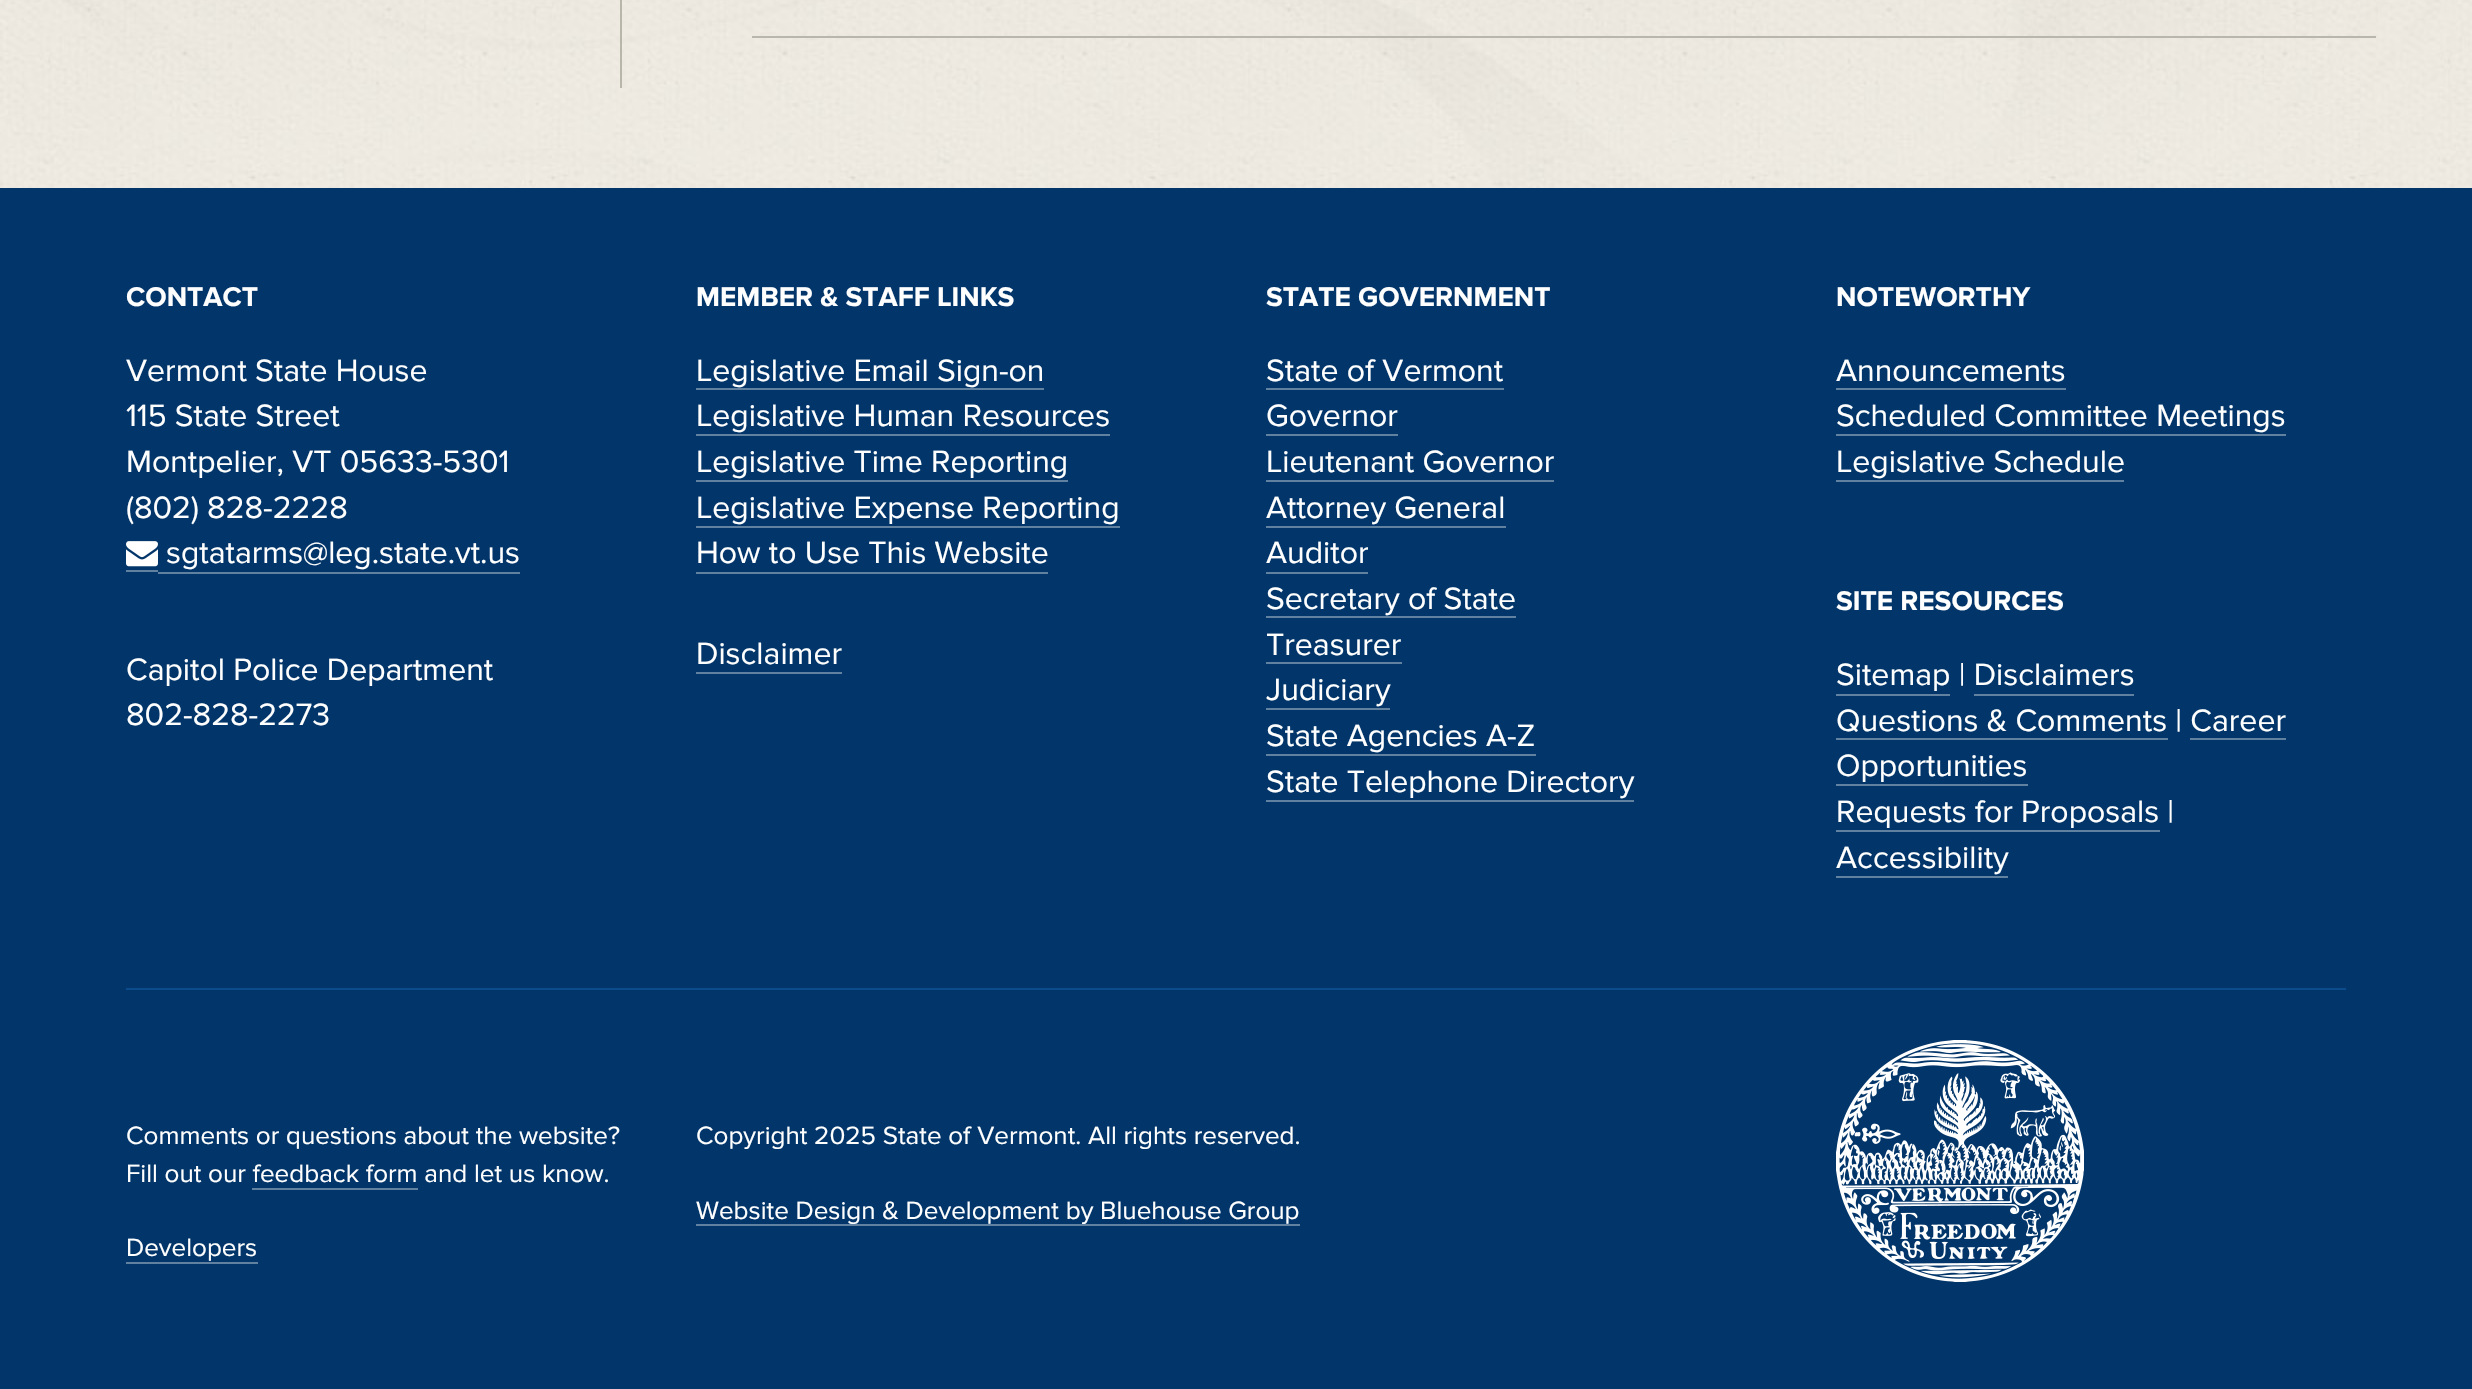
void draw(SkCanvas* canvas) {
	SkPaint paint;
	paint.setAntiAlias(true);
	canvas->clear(0xff023569);
	canvas->drawImageRect(SkImages::DeferredFromEncodedData(SkData::MakeFromFileName("img1.png")), SkRect::MakeXYWH(0, 0, 2472, 188), SkSamplingOptions());
	paint.setColor(0xffb8b5aa);
	canvas->drawRect(SkRect::MakeXYWH(620, 0, 2, 88), paint);
	paint.setColor(0xffb9b6ad);
	canvas->drawRect(SkRect::MakeXYWH(752, 36, 1624, 2), paint);
	SkFont f1(fontMgr->matchFamilyStyle("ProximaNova", SkFontStyle::Bold()), 28);
	f1.setSubpixel(true);
	paint.setColor(0xffffffff);
	canvas->drawString("CONTACT", 126, 306, f1, paint);
	SkFont f2(fontMgr->matchFamilyStyle("ProximaNova", SkFontStyle::Normal()), 32);
	f2.setSubpixel(true);
	canvas->drawString("Vermont State House", 126, 381, f2, paint);
	canvas->drawString("115 State Street", 126, 426, f2, paint);
	canvas->drawString("Montpelier, VT 05633-5301", 126, 472, f2, paint);
	canvas->drawString("(802) 828-2228", 126, 518, f2, paint);
	paint.setColor(0xff6181a1);
	canvas->drawRect(SkRect::MakeXYWH(126, 570, 32, 2), paint);
	canvas->drawRect(SkRect::MakeXYWH(158, 572, 362, 2), paint);
	canvas->drawImageRect(SkImages::DeferredFromEncodedData(SkData::MakeFromFileName("img2.png")), SkRect::MakeXYWH(126, 541, 32, 26), SkSamplingOptions());
	paint.setColor(0xffffffff);
	canvas->drawString("sgtatarms@leg.state.vt.us", 166, 563, f2, paint);
	canvas->drawString("Capitol Police Department", 126, 680, f2, paint);
	canvas->drawString("802-828-2273", 126, 725, f2, paint);
	canvas->drawString("MEMBER & STAFF LINKS", 696, 306, f1, paint);
	canvas->drawString("Legislative Email Sign-on", 696, 381, f2, paint);
	paint.setColor(0xff6181a1);
	canvas->drawRect(SkRect::MakeXYWH(696, 388, 348, 2), paint);
	paint.setColor(0xffffffff);
	canvas->drawString("Legislative Human Resources", 696, 426, f2, paint);
	paint.setColor(0xff6181a1);
	canvas->drawRect(SkRect::MakeXYWH(696, 434, 414, 2), paint);
	paint.setColor(0xffffffff);
	canvas->drawString("Legislative Time Reporting", 696, 472, f2, paint);
	paint.setColor(0xff6181a1);
	canvas->drawRect(SkRect::MakeXYWH(696, 480, 372, 2), paint);
	paint.setColor(0xffffffff);
	canvas->drawString("Legislative Expense Reporting", 696, 518, f2, paint);
	paint.setColor(0xff6181a1);
	canvas->drawRect(SkRect::MakeXYWH(696, 526, 424, 2), paint);
	paint.setColor(0xffffffff);
	canvas->drawString("How to Use This Website", 696, 563, f2, paint);
	paint.setColor(0xff6181a1);
	canvas->drawRect(SkRect::MakeXYWH(696, 572, 352, 2), paint);
	paint.setColor(0xffffffff);
	canvas->drawString("Disclaimer", 696, 664, f2, paint);
	paint.setColor(0xff6181a1);
	canvas->drawRect(SkRect::MakeXYWH(696, 672, 146, 2), paint);
	paint.setColor(0xffffffff);
	canvas->drawString("STATE GOVERNMENT", 1266, 306, f1, paint);
	canvas->drawString("State of Vermont", 1266, 381, f2, paint);
	paint.setColor(0xff6181a1);
	canvas->drawRect(SkRect::MakeXYWH(1266, 388, 238, 2), paint);
	paint.setColor(0xffffffff);
	canvas->drawString("Governor", 1266, 426, f2, paint);
	paint.setColor(0xff6181a1);
	canvas->drawRect(SkRect::MakeXYWH(1266, 434, 132, 2), paint);
	paint.setColor(0xffffffff);
	canvas->drawString("Lieutenant Governor", 1266, 472, f2, paint);
	paint.setColor(0xff6181a1);
	canvas->drawRect(SkRect::MakeXYWH(1266, 480, 288, 2), paint);
	paint.setColor(0xffffffff);
	canvas->drawString("Attorney General", 1266, 518, f2, paint);
	paint.setColor(0xff6181a1);
	canvas->drawRect(SkRect::MakeXYWH(1266, 526, 240, 2), paint);
	paint.setColor(0xffffffff);
	canvas->drawString("Auditor", 1266, 563, f2, paint);
	paint.setColor(0xff6181a1);
	canvas->drawRect(SkRect::MakeXYWH(1266, 572, 102, 2), paint);
	paint.setColor(0xffffffff);
	canvas->drawString("Secretary of State", 1266, 609, f2, paint);
	paint.setColor(0xff6181a1);
	canvas->drawRect(SkRect::MakeXYWH(1266, 616, 250, 2), paint);
	paint.setColor(0xffffffff);
	canvas->drawString("Treasurer", 1266, 655, f2, paint);
	paint.setColor(0xff6181a1);
	canvas->drawRect(SkRect::MakeXYWH(1266, 662, 136, 2), paint);
	paint.setColor(0xffffffff);
	canvas->drawString("Judiciary", 1266, 700, f2, paint);
	paint.setColor(0xff6181a1);
	canvas->drawRect(SkRect::MakeXYWH(1266, 708, 124, 2), paint);
	paint.setColor(0xffffffff);
	canvas->drawString("State Agencies A-Z", 1266, 746, f2, paint);
	paint.setColor(0xff6181a1);
	canvas->drawRect(SkRect::MakeXYWH(1266, 754, 270, 2), paint);
	paint.setColor(0xffffffff);
	canvas->drawString("State Telephone Directory", 1266, 792, f2, paint);
	paint.setColor(0xff6181a1);
	canvas->drawRect(SkRect::MakeXYWH(1266, 800, 368, 2), paint);
	paint.setColor(0xffffffff);
	canvas->drawString("NOTEWORTHY", 1836, 306, f1, paint);
	canvas->drawString("Announcements", 1836, 381, f2, paint);
	paint.setColor(0xff6181a1);
	canvas->drawRect(SkRect::MakeXYWH(1836, 388, 230, 2), paint);
	paint.setColor(0xffffffff);
	canvas->drawString("Scheduled Committee Meetings", 1836, 426, f2, paint);
	paint.setColor(0xff6181a1);
	canvas->drawRect(SkRect::MakeXYWH(1836, 434, 450, 2), paint);
	paint.setColor(0xffffffff);
	canvas->drawString("Legislative Schedule", 1836, 472, f2, paint);
	paint.setColor(0xff6181a1);
	canvas->drawRect(SkRect::MakeXYWH(1836, 480, 288, 2), paint);
	paint.setColor(0xffffffff);
	canvas->drawString("SITE RESOURCES", 1836, 610, f1, paint);
	canvas->drawString("Sitemap | Disclaimers", 1836, 685, f2, paint);
	paint.setColor(0xff6181a1);
	canvas->drawRect(SkRect::MakeXYWH(1836, 694, 114, 2), paint);
	canvas->drawRect(SkRect::MakeXYWH(1974, 694, 160, 2), paint);
	paint.setColor(0xffffffff);
	canvas->drawString("Questions & Comments | Career", 1836, 731, f2, paint);
	paint.setColor(0xff6181a1);
	canvas->drawRect(SkRect::MakeXYWH(1836, 738, 332, 2), paint);
	paint.setColor(0xffffffff);
	canvas->drawString("Opportunities", 1836, 776, f2, paint);
	paint.setColor(0xff6181a1);
	canvas->drawRect(SkRect::MakeXYWH(2190, 738, 96, 2), paint);
	canvas->drawRect(SkRect::MakeXYWH(1836, 784, 192, 2), paint);
	paint.setColor(0xffffffff);
	canvas->drawString("Requests for Proposals |", 1836, 822, f2, paint);
	paint.setColor(0xff6181a1);
	canvas->drawRect(SkRect::MakeXYWH(1836, 830, 324, 2), paint);
	paint.setColor(0xffffffff);
	canvas->drawString("Accessibility", 1836, 868, f2, paint);
	paint.setColor(0xff6181a1);
	canvas->drawRect(SkRect::MakeXYWH(1836, 876, 172, 2), paint);
	paint.setColor(0xff0d4c8c);
	canvas->drawRect(SkRect::MakeXYWH(126, 988, 2220, 2), paint);
	SkFont f3(fontMgr->matchFamilyStyle("ProximaNova", SkFontStyle::Normal()), 26);
	f3.setSubpixel(true);
	paint.setColor(0xffffffff);
	canvas->drawString("Comments or questions about the website?", 126, 1144, f3, paint);
	canvas->drawString("Fill out our feedback form and let us know.", 126, 1182, f3, paint);
	paint.setColor(0xff6181a1);
	canvas->drawRect(SkRect::MakeXYWH(252, 1188, 166, 2), paint);
	paint.setColor(0xffffffff);
	canvas->drawString("Developers", 126, 1256, f3, paint);
	paint.setColor(0xff6181a1);
	canvas->drawRect(SkRect::MakeXYWH(126, 1262, 132, 2), paint);
	paint.setColor(0xffffffff);
	canvas->drawString("Copyright 2025 State of Vermont. All rights reserved.", 696, 1144, f3, paint);
	paint.setColor(0xff6181a1);
	canvas->drawRect(SkRect::MakeXYWH(696, 1224, 604, 2), paint);
	paint.setColor(0xffffffff);
	canvas->drawString("Website Design & Development by Bluehouse Group", 696, 1219, f3, paint);
	canvas->drawImageRect(SkImages::DeferredFromEncodedData(SkData::MakeFromFileName("img3.png")), SkRect::MakeXYWH(1836, 1040, 248, 242), SkSamplingOptions());
}
